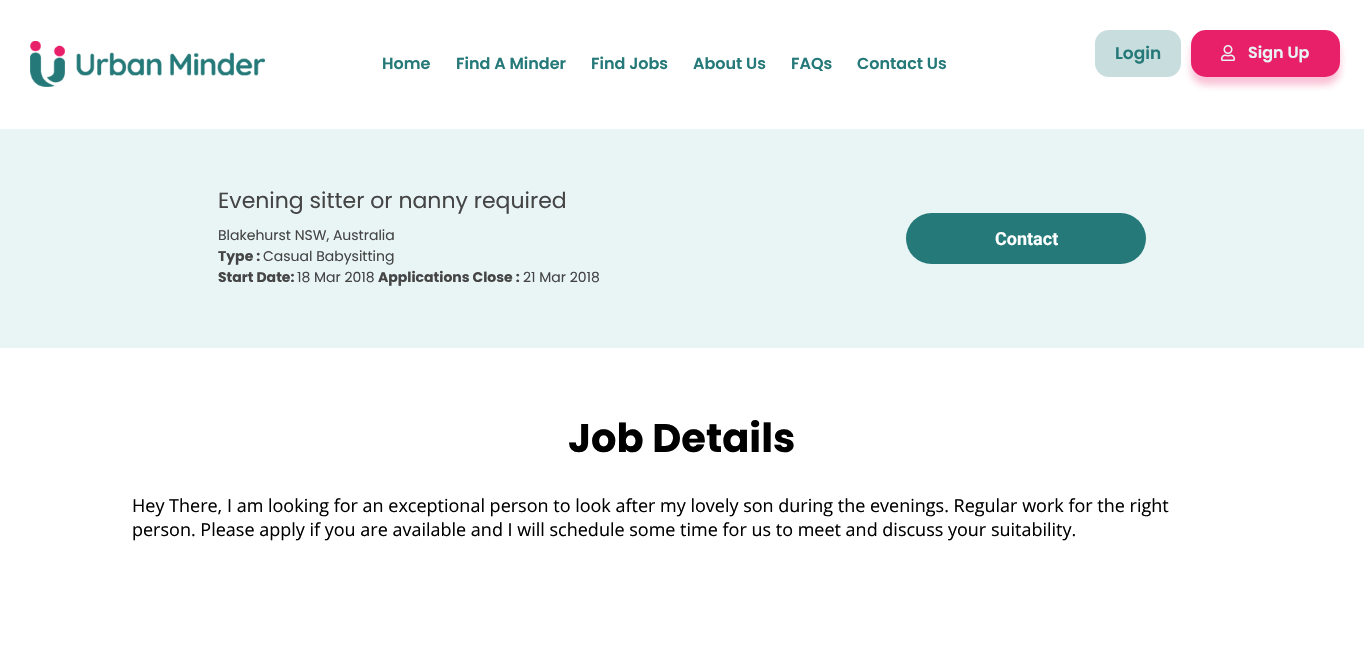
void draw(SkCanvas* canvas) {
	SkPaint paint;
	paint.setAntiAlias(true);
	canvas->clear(0xffffffff);
	canvas->drawImageRect(SkImages::DeferredFromEncodedData(SkData::MakeFromFileName("img1.png")), SkRect::MakeXYWH(30, 41, 235, 46), SkSamplingOptions());
	SkFont f1(fontMgr->matchFamilyStyle("Poppins", SkFontStyle(600, SkFontStyle::kNormal_Width, SkFontStyle::kUpright_Slant)), 16);
	f1.setSubpixel(true);
	paint.setColor(0xff257979);
	canvas->drawString("Home", 382, 69, f1, paint);
	canvas->drawString("Find A Minder", 456, 69, f1, paint);
	canvas->drawString("Find Jobs", 591, 69, f1, paint);
	canvas->drawString("About Us", 693, 69, f1, paint);
	canvas->drawString("FAQs", 791, 69, f1, paint);
	canvas->drawString("Contact Us", 857, 69, f1, paint);
	paint.setColor(0xffc8dddd);
	canvas->drawRoundRect(SkRect::MakeXYWH(1095, 30, 86, 47), 14, 14, paint);
	SkFont f2(fontMgr->matchFamilyStyle("Poppins", SkFontStyle(600, SkFontStyle::kNormal_Width, SkFontStyle::kUpright_Slant)), 17);
	f2.setSubpixel(true);
	paint.setColor(0xff257979);
	canvas->drawString("Login", 1115, 59, f2, paint);
	paint.setColor(0x45e81f69);
	paint.setMaskFilter(SkMaskFilter::MakeBlur(kNormal_SkBlurStyle, 3.5));
	canvas->drawRoundRect(SkRect::MakeXYWH(1191, 38, 149, 47), 15, 15, paint);
	paint.setMaskFilter(nullptr);
	paint.setColor(0xffe81f69);
	canvas->drawRoundRect(SkRect::MakeXYWH(1191, 30, 149, 47), 15, 15, paint);
	canvas->drawImageRect(SkImages::DeferredFromEncodedData(SkData::MakeFromFileName("img2.png")), SkRect::MakeXYWH(1221, 45, 14, 16), SkSamplingOptions());
	paint.setColor(0xffe9f5f5);
	canvas->drawString("Sign Up", 1248, 58, f1, paint);
	canvas->drawRect(SkRect::MakeXYWH(0, 129, 1364, 219), paint);
	SkFont f3(fontMgr->matchFamilyStyle("Poppins", SkFontStyle::Normal()), 22);
	f3.setSubpixel(true);
	paint.setColor(0xff454545);
	canvas->drawString("Evening sitter or nanny required", 218, 208, f3, paint);
	SkFont f4(fontMgr->matchFamilyStyle("Poppins", SkFontStyle::Normal()), 14);
	f4.setSubpixel(true);
	canvas->drawString("Blakehurst NSW, Australia", 218, 240, f4, paint);
	SkFont f5(fontMgr->matchFamilyStyle("Poppins", SkFontStyle::Bold()), 14);
	f5.setSubpixel(true);
	canvas->drawString("Type :", 218, 261, f5, paint);
	canvas->drawString("Casual Babysitting", 263, 261, f4, paint);
	canvas->drawString("Start Date:", 218, 282, f5, paint);
	canvas->drawString("18 Mar 2018", 297, 282, f4, paint);
	canvas->drawString("Applications Close :", 378, 282, f5, paint);
	canvas->drawString("21 Mar 2018", 523, 282, f4, paint);
	paint.setColor(0xff257979);
	canvas->drawRoundRect(SkRect::MakeXYWH(906, 213, 240, 51), 25.5, 25.5, paint);
	SkFont f6(fontMgr->matchFamilyStyle("Roboto", SkFontStyle::Bold()), 18);
	f6.setSubpixel(true);
	paint.setColor(0xffffffff);
	canvas->drawString("Contact", 995, 245, f6, paint);
	SkFont f7(fontMgr->matchFamilyStyle("Poppins", SkFontStyle::Bold()), 40);
	f7.setSubpixel(true);
	paint.setColor(0xff000000);
	canvas->drawString("Job Details", 568, 452, f7, paint);
	SkFont f8(fontMgr->matchFamilyStyle("Open Sans", SkFontStyle::Normal()), 18);
	f8.setSubpixel(true);
	canvas->drawString("Hey There, I am looking for an exceptional person to look after my lovely son during the evenings. Regular work for the right", 132, 512, f8, paint);
	canvas->drawString("person. Please apply if you are available and I will schedule some time for us to meet and discuss your suitability.", 132, 536, f8, paint);
}
